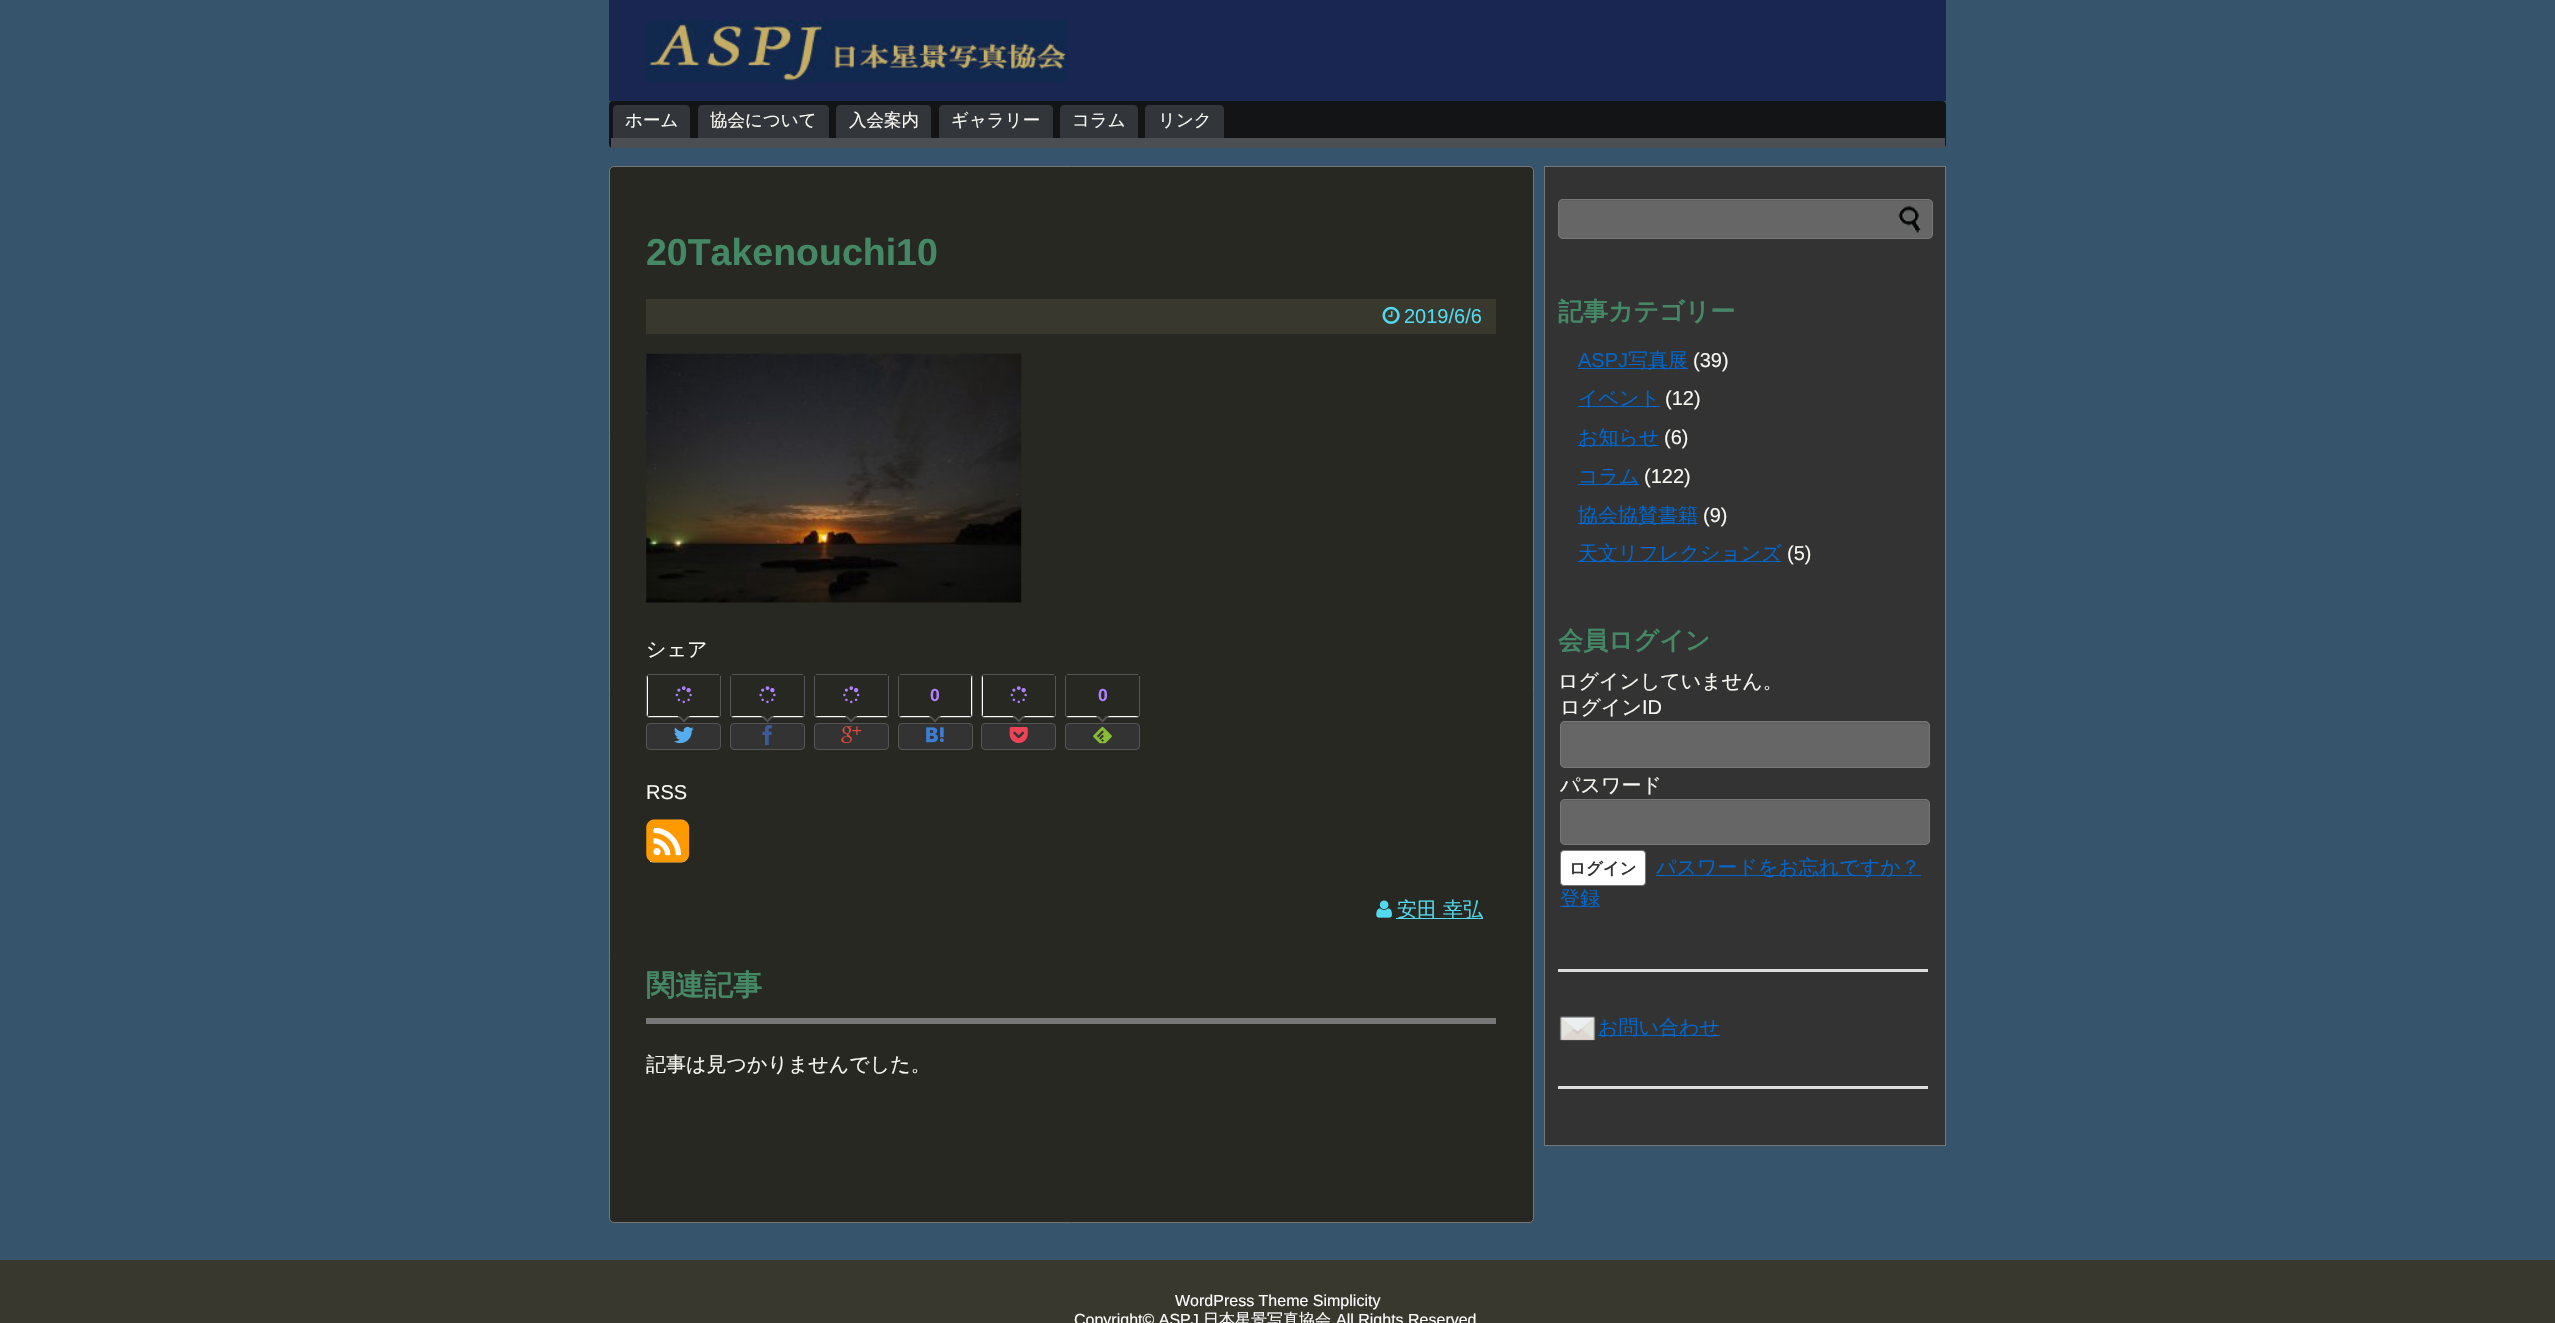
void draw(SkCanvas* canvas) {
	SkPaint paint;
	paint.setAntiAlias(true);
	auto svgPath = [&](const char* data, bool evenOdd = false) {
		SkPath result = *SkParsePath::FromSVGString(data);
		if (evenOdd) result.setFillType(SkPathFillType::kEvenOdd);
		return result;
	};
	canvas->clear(0xff36556d);
	paint.setColor(0xff192651);
	canvas->drawRect(SkRect::MakeXYWH(609, 0, 1337, 101), paint);
	canvas->drawImageRect(SkImages::DeferredFromEncodedData(SkData::MakeFromFileName("img1.png")), SkRect::MakeXYWH(646, 20, 422, 63), SkSamplingOptions());
	paint.setColor(0xff131416);
	canvas->drawRoundRect(SkRect::MakeXYWH(609, 101, 1337, 47), 4, 4, paint);
	paint.setColor(0xff4b4f53);
	canvas->drawRect(SkRect::MakeXYWH(611, 138, 1334, 10), paint);
	paint.setColor(0xff32363b);
	canvas->drawPath(svgPath("M617 105H686C688 105 690 107 690 109V138H613V109C613 107 615 105 617 105Z"), paint);
	SkFont f1(fontMgr->matchFamilyStyle("WenQuanYi Zen Hei", SkFontStyle(500, SkFontStyle::kNormal_Width, SkFontStyle::kUpright_Slant)), 17.5);
	f1.setSubpixel(true);
	paint.setColor(0xfff8f8f2);
	canvas->drawString("ホーム", 625, 126, f1, paint);
	paint.setColor(0xff32363b);
	canvas->drawPath(svgPath("M702 105H825C827 105 829 107 829 109V138H698V109C698 107 700 105 702 105Z"), paint);
	paint.setColor(0xfff8f8f2);
	canvas->drawString("協会について", 710, 126, f1, paint);
	paint.setColor(0xff32363b);
	canvas->drawPath(svgPath("M840 105H927C929 105 931 107 931 109V138H836V109C836 107 838 105 840 105Z"), paint);
	paint.setColor(0xfff8f8f2);
	canvas->drawString("入会案内", 849, 126, f1, paint);
	paint.setColor(0xff32363b);
	canvas->drawPath(svgPath("M943 105H1049C1051 105 1053 107 1053 109V138H939V109C939 107 941 105 943 105Z"), paint);
	paint.setColor(0xfff8f8f2);
	canvas->drawString("ギャラリー", 951, 126, f1, paint);
	paint.setColor(0xff32363b);
	canvas->drawPath(svgPath("M1064 105H1134C1136 105 1138 107 1138 109V138H1060V109C1060 107 1062 105 1064 105Z"), paint);
	paint.setColor(0xfff8f8f2);
	canvas->drawString("コラム", 1072, 126, f1, paint);
	paint.setColor(0xff32363b);
	canvas->drawPath(svgPath("M1149 105H1220C1222 105 1224 107 1224 109V138H1145V109C1145 107 1147 105 1149 105Z"), paint);
	paint.setColor(0xfff8f8f2);
	canvas->drawString("リンク", 1158, 126, f1, paint);
	paint.setColor(0xff272822);
	canvas->drawRoundRect(SkRect::MakeXYWH(609.5, 166.5, 924, 1056), 4.5, 4.5, paint);
	paint.setStroke(true);
	paint.setStrokeWidth(1);
	paint.setColor(0xff777777);
	canvas->drawRoundRect(SkRect::MakeXYWH(609.5, 166.5, 924, 1056), 4.5, 4.5, paint);
	SkFont f2(fontMgr->matchFamilyStyle("Liberation Sans", SkFontStyle::Bold()), 37.5);
	f2.setSubpixel(true);
	paint.setStroke(false);
	paint.setColor(0xff448866);
	canvas->drawString("20Takenouchi10", 646, 265, f2, paint);
	paint.setColor(0xff39382e);
	canvas->drawRect(SkRect::MakeXYWH(646, 299, 850, 35), paint);
	canvas->drawImageRect(SkImages::DeferredFromEncodedData(SkData::MakeFromFileName("img2.png")), SkRect::MakeXYWH(1382, 306, 18, 18), SkSamplingOptions());
	SkFont f3(fontMgr->matchFamilyStyle("Liberation Sans", SkFontStyle::Normal()), 20);
	f3.setSubpixel(true);
	paint.setColor(0xff52d9ef);
	canvas->drawString("2019/6/6", 1404, 323, f3, paint);
	canvas->drawImageRect(SkImages::DeferredFromEncodedData(SkData::MakeFromFileName("img3.png")), SkRect::MakeXYWH(646, 353, 376, 250), SkSamplingOptions());
	SkFont f4(fontMgr->matchFamilyStyle("WenQuanYi Zen Hei", SkFontStyle(500, SkFontStyle::kNormal_Width, SkFontStyle::kUpright_Slant)), 20);
	f4.setSubpixel(true);
	paint.setColor(0xfff8f8f2);
	canvas->drawString("シェア", 646, 656, f4, paint);
	paint.setColor(0xffffffff);
	canvas->drawRoundRect(SkRect::MakeXYWH(646.5, 674.5, 74, 43), 3.5, 3.5, paint);
	paint.setStroke(true);
	paint.setColor(0xff555555);
	canvas->drawRoundRect(SkRect::MakeXYWH(646.5, 674.5, 74, 43), 3.5, 3.5, paint);
	paint.setStroke(false);
	paint.setColor(0xff272822);
	canvas->drawRect(SkRect::MakeXYWH(648, 675, 72, 41), paint);
	canvas->drawImageRect(SkImages::DeferredFromEncodedData(SkData::MakeFromFileName("img4.png")), SkRect::MakeXYWH(675, 686, 17, 18), SkSamplingOptions());
	paint.setColor(0xff555555);
	canvas->drawPath(svgPath("M677.5 716H690L684 722.5Z"), paint);
	paint.setColor(0xff272822);
	canvas->drawPath(svgPath("M680 716H687.5L684 720Z"), paint);
	paint.setColor(0xff333333);
	canvas->drawRoundRect(SkRect::MakeXYWH(646.5, 723.5, 74, 26), 3.5, 3.5, paint);
	paint.setStroke(true);
	paint.setColor(0xff555555);
	canvas->drawRoundRect(SkRect::MakeXYWH(646.5, 723.5, 74, 26), 3.5, 3.5, paint);
	canvas->drawImageRect(SkImages::DeferredFromEncodedData(SkData::MakeFromFileName("img5.png")), SkRect::MakeXYWH(674, 726, 20, 18), SkSamplingOptions());
	paint.setStroke(false);
	paint.setColor(0xffffffff);
	canvas->drawRoundRect(SkRect::MakeXYWH(730.5, 674.5, 74, 43), 3.5, 3.5, paint);
	paint.setStroke(true);
	paint.setColor(0xff555555);
	canvas->drawRoundRect(SkRect::MakeXYWH(730.5, 674.5, 74, 43), 3.5, 3.5, paint);
	paint.setStroke(false);
	paint.setColor(0xff272822);
	canvas->drawRect(SkRect::MakeXYWH(731, 675, 73, 41), paint);
	canvas->drawImageRect(SkImages::DeferredFromEncodedData(SkData::MakeFromFileName("img6.png")), SkRect::MakeXYWH(759, 686, 17, 18), SkSamplingOptions());
	paint.setColor(0xff555555);
	canvas->drawPath(svgPath("M761 716H774L767.5 722.5Z"), paint);
	paint.setColor(0xff272822);
	canvas->drawPath(svgPath("M764 716H771L767.5 720Z"), paint);
	paint.setColor(0xff333333);
	canvas->drawRoundRect(SkRect::MakeXYWH(730.5, 723.5, 74, 26), 3.5, 3.5, paint);
	paint.setStroke(true);
	paint.setColor(0xff555555);
	canvas->drawRoundRect(SkRect::MakeXYWH(730.5, 723.5, 74, 26), 3.5, 3.5, paint);
	canvas->drawImageRect(SkImages::DeferredFromEncodedData(SkData::MakeFromFileName("img7.png")), SkRect::MakeXYWH(762, 725, 10, 20), SkSamplingOptions());
	paint.setStroke(false);
	paint.setColor(0xffffffff);
	canvas->drawRoundRect(SkRect::MakeXYWH(814.5, 674.5, 74, 43), 3.5, 3.5, paint);
	paint.setStroke(true);
	paint.setColor(0xff555555);
	canvas->drawRoundRect(SkRect::MakeXYWH(814.5, 674.5, 74, 43), 3.5, 3.5, paint);
	paint.setStroke(false);
	paint.setColor(0xff272822);
	canvas->drawRect(SkRect::MakeXYWH(815, 675, 73, 41), paint);
	canvas->drawImageRect(SkImages::DeferredFromEncodedData(SkData::MakeFromFileName("img8.png")), SkRect::MakeXYWH(843, 686, 17, 18), SkSamplingOptions());
	paint.setColor(0xff555555);
	canvas->drawPath(svgPath("M845 716H857.5L851 722.5Z"), paint);
	paint.setColor(0xff272822);
	canvas->drawPath(svgPath("M847.5 716H855L851 720Z"), paint);
	paint.setColor(0xff333333);
	canvas->drawRoundRect(SkRect::MakeXYWH(814.5, 723.5, 74, 26), 3.5, 3.5, paint);
	paint.setStroke(true);
	paint.setColor(0xff555555);
	canvas->drawRoundRect(SkRect::MakeXYWH(814.5, 723.5, 74, 26), 3.5, 3.5, paint);
	canvas->drawImageRect(SkImages::DeferredFromEncodedData(SkData::MakeFromFileName("img9.png")), SkRect::MakeXYWH(841, 726, 21, 18), SkSamplingOptions());
	paint.setStroke(false);
	paint.setColor(0xffffffff);
	canvas->drawRoundRect(SkRect::MakeXYWH(898.5, 674.5, 74, 43), 3.5, 3.5, paint);
	paint.setStroke(true);
	paint.setColor(0xff555555);
	canvas->drawRoundRect(SkRect::MakeXYWH(898.5, 674.5, 74, 43), 3.5, 3.5, paint);
	paint.setStroke(false);
	paint.setColor(0xff272822);
	canvas->drawRect(SkRect::MakeXYWH(899, 675, 72, 41), paint);
	SkFont f5(fontMgr->matchFamilyStyle("Liberation Sans", SkFontStyle::Bold()), 17.5);
	f5.setSubpixel(true);
	paint.setColor(0xffae81ff);
	canvas->drawString("0", 930, 701, f5, paint);
	paint.setColor(0xff555555);
	canvas->drawPath(svgPath("M929 716H941L935 722.5Z"), paint);
	paint.setColor(0xff272822);
	canvas->drawPath(svgPath("M931 716H939L935 720Z"), paint);
	paint.setColor(0xff333333);
	canvas->drawRoundRect(SkRect::MakeXYWH(898.5, 723.5, 74, 26), 3.5, 3.5, paint);
	paint.setStroke(true);
	paint.setColor(0xff555555);
	canvas->drawRoundRect(SkRect::MakeXYWH(898.5, 723.5, 74, 26), 3.5, 3.5, paint);
	canvas->drawImageRect(SkImages::DeferredFromEncodedData(SkData::MakeFromFileName("img10.png")), SkRect::MakeXYWH(926, 727, 18, 16), SkSamplingOptions());
	paint.setStroke(false);
	paint.setColor(0xffffffff);
	canvas->drawRoundRect(SkRect::MakeXYWH(981.5, 674.5, 74, 43), 3.5, 3.5, paint);
	paint.setStroke(true);
	paint.setColor(0xff555555);
	canvas->drawRoundRect(SkRect::MakeXYWH(981.5, 674.5, 74, 43), 3.5, 3.5, paint);
	paint.setStroke(false);
	paint.setColor(0xff272822);
	canvas->drawRect(SkRect::MakeXYWH(983, 675, 72, 41), paint);
	canvas->drawImageRect(SkImages::DeferredFromEncodedData(SkData::MakeFromFileName("img4.png")), SkRect::MakeXYWH(1010, 686, 17, 18), SkSamplingOptions());
	paint.setColor(0xff555555);
	canvas->drawPath(svgPath("M1012.5 716H1025L1019 722.5Z"), paint);
	paint.setColor(0xff272822);
	canvas->drawPath(svgPath("M1015 716H1022.5L1019 720Z"), paint);
	paint.setColor(0xff333333);
	canvas->drawRoundRect(SkRect::MakeXYWH(981.5, 723.5, 74, 26), 3.5, 3.5, paint);
	paint.setStroke(true);
	paint.setColor(0xff555555);
	canvas->drawRoundRect(SkRect::MakeXYWH(981.5, 723.5, 74, 26), 3.5, 3.5, paint);
	canvas->drawImageRect(SkImages::DeferredFromEncodedData(SkData::MakeFromFileName("img11.png")), SkRect::MakeXYWH(1009, 727, 19, 17), SkSamplingOptions());
	paint.setStroke(false);
	paint.setColor(0xffffffff);
	canvas->drawRoundRect(SkRect::MakeXYWH(1065.5, 674.5, 74, 43), 3.5, 3.5, paint);
	paint.setStroke(true);
	paint.setColor(0xff555555);
	canvas->drawRoundRect(SkRect::MakeXYWH(1065.5, 674.5, 74, 43), 3.5, 3.5, paint);
	paint.setStroke(false);
	paint.setColor(0xff272822);
	canvas->drawRect(SkRect::MakeXYWH(1066, 675, 73, 41), paint);
	paint.setColor(0xffae81ff);
	canvas->drawString("0", 1098, 701, f5, paint);
	paint.setColor(0xff555555);
	canvas->drawPath(svgPath("M1096 716H1109L1102.5 722.5Z"), paint);
	paint.setColor(0xff272822);
	canvas->drawPath(svgPath("M1099 716H1106L1102.5 720Z"), paint);
	paint.setColor(0xff333333);
	canvas->drawRoundRect(SkRect::MakeXYWH(1065.5, 723.5, 74, 26), 3.5, 3.5, paint);
	paint.setStroke(true);
	paint.setColor(0xff555555);
	canvas->drawRoundRect(SkRect::MakeXYWH(1065.5, 723.5, 74, 26), 3.5, 3.5, paint);
	canvas->drawImageRect(SkImages::DeferredFromEncodedData(SkData::MakeFromFileName("img12.png")), SkRect::MakeXYWH(1093, 726, 19, 18), SkSamplingOptions());
	paint.setStroke(false);
	paint.setColor(0xfff8f8f2);
	canvas->drawString("RSS", 646, 799, f3, paint);
	canvas->drawImageRect(SkImages::DeferredFromEncodedData(SkData::MakeFromFileName("img13.png")), SkRect::MakeXYWH(650, 827, 38, 36), SkSamplingOptions());
	canvas->drawImageRect(SkImages::DeferredFromEncodedData(SkData::MakeFromFileName("img14.png")), SkRect::MakeXYWH(646, 819, 44, 44), SkSamplingOptions());
	canvas->drawImageRect(SkImages::DeferredFromEncodedData(SkData::MakeFromFileName("img15.png")), SkRect::MakeXYWH(1376, 900, 16, 18), SkSamplingOptions());
	paint.setColor(0xff52d9ef);
	canvas->drawRect(SkRect::MakeXYWH(1396, 918, 87, 1), paint);
	canvas->drawString("安田 幸弘", 1397, 916, f4, paint);
	paint.setColor(0xff777777);
	canvas->drawRect(SkRect::MakeXYWH(646, 1018, 850, 6), paint);
	SkFont f6(fontMgr->matchFamilyStyle("WenQuanYi Zen Hei", SkFontStyle::Bold()), 29);
	f6.setSubpixel(true);
	paint.setColor(0xff448866);
	canvas->drawString("関連記事", 646, 995, f6, paint);
	paint.setColor(0xfff8f8f2);
	canvas->drawString("記事は見つかりませんでした。", 646, 1071, f4, paint);
	paint.setColor(0xff333333);
	canvas->drawRect(SkRect::MakeXYWH(1544.5, 166.5, 401, 979), paint);
	paint.setStroke(true);
	paint.setColor(0xff777777);
	canvas->drawRect(SkRect::MakeXYWH(1544.5, 166.5, 401, 979), paint);
	paint.setStroke(false);
	paint.setColor(0xff666666);
	canvas->drawRoundRect(SkRect::MakeXYWH(1558, 199, 375, 40), 5, 5, paint);
	paint.setColor(0xff5e5e5e);
	canvas->drawPath(svgPath("M1562 201H1928C1930 201 1931 203 1931 205C1931 202 1930 200 1927 200H1563C1560 200 1559 202 1559 205C1559 203 1560 201 1562 201Z"), paint);
	paint.setStroke(true);
	paint.setColor(0xff777777);
	canvas->drawRoundRect(SkRect::MakeXYWH(1558.5, 199.5, 374, 39), 4.5, 4.5, paint);
	canvas->drawImageRect(SkImages::DeferredFromEncodedData(SkData::MakeFromFileName("img16.png")), SkRect::MakeXYWH(1898, 206, 23, 27), SkSamplingOptions());
	SkFont f7(fontMgr->matchFamilyStyle("WenQuanYi Zen Hei", SkFontStyle::Bold()), 25);
	f7.setSubpixel(true);
	paint.setStroke(false);
	paint.setColor(0xff448866);
	canvas->drawString("記事カテゴリー", 1558, 320, f7, paint);
	paint.setColor(0xff0066cc);
	canvas->drawString("ASPJ", 1578, 367, f3, paint);
	canvas->drawRect(SkRect::MakeXYWH(1578, 368, 110, 1), paint);
	canvas->drawString("写真展", 1628, 367, f4, paint);
	paint.setColor(0xfff8f8f2);
	canvas->drawString("(39)", 1693, 367, f3, paint);
	paint.setColor(0xff0066cc);
	canvas->drawRect(SkRect::MakeXYWH(1578, 406, 82, 1), paint);
	canvas->drawString("イベント", 1578, 405, f4, paint);
	paint.setColor(0xfff8f8f2);
	canvas->drawString("(12)", 1665, 405, f3, paint);
	paint.setColor(0xff0066cc);
	canvas->drawRect(SkRect::MakeXYWH(1578, 445, 81, 1), paint);
	canvas->drawString("お知らせ", 1578, 444, f4, paint);
	paint.setColor(0xfff8f8f2);
	canvas->drawString("(6)", 1664, 444, f3, paint);
	paint.setColor(0xff0066cc);
	canvas->drawRect(SkRect::MakeXYWH(1578, 484, 61, 1), paint);
	canvas->drawString("コラム", 1578, 483, f4, paint);
	paint.setColor(0xfff8f8f2);
	canvas->drawString("(122)", 1644, 483, f3, paint);
	paint.setColor(0xff0066cc);
	canvas->drawRect(SkRect::MakeXYWH(1578, 523, 120, 1), paint);
	canvas->drawString("協会協賛書籍", 1578, 522, f4, paint);
	paint.setColor(0xfff8f8f2);
	canvas->drawString("(9)", 1703, 522, f3, paint);
	paint.setColor(0xff0066cc);
	canvas->drawRect(SkRect::MakeXYWH(1578, 561, 203, 1), paint);
	canvas->drawString("天文リフレクションズ", 1578, 560, f4, paint);
	paint.setColor(0xfff8f8f2);
	canvas->drawString("(5)", 1787, 560, f3, paint);
	paint.setColor(0xff448866);
	canvas->drawString("会員ログイン", 1558, 649, f7, paint);
	paint.setColor(0xfff8f8f2);
	canvas->drawString("ログインしていません。", 1558, 688, f4, paint);
	canvas->drawString("ログイン", 1560, 714, f4, paint);
	canvas->drawString("ID", 1642, 714, f3, paint);
	paint.setColor(0xff666666);
	canvas->drawRoundRect(SkRect::MakeXYWH(1560, 721, 370, 47), 5, 5, paint);
	paint.setColor(0xff5e5e5e);
	canvas->drawPath(svgPath("M1565 724H1925C1927 724 1929 725 1929 728C1929 725 1928 723 1925 723H1565C1562 723 1561 725 1561 728C1561 725 1563 724 1565 724Z"), paint);
	paint.setStroke(true);
	paint.setColor(0xff777777);
	canvas->drawRoundRect(SkRect::MakeXYWH(1560.5, 721.5, 369, 46), 4.5, 4.5, paint);
	paint.setStroke(false);
	paint.setColor(0xfff8f8f2);
	canvas->drawString("パスワード", 1560, 792, f4, paint);
	paint.setColor(0xff666666);
	canvas->drawRoundRect(SkRect::MakeXYWH(1560, 799, 370, 46), 5, 5, paint);
	paint.setColor(0xff5e5e5e);
	canvas->drawPath(svgPath("M1565 801H1925C1927 801 1929 803 1929 805C1929 802 1928 800 1925 800H1565C1562 800 1561 802 1561 805C1561 803 1563 801 1565 801Z"), paint);
	paint.setStroke(true);
	paint.setColor(0xff777777);
	canvas->drawRoundRect(SkRect::MakeXYWH(1560.5, 799.5, 369, 45), 4.5, 4.5, paint);
	paint.setStroke(false);
	paint.setColor(0xffffffff);
	canvas->drawRoundRect(SkRect::MakeXYWH(1560.5, 850.5, 85, 35), 3.5, 3.5, paint);
	paint.setStroke(true);
	paint.setColor(0xff777777);
	canvas->drawRoundRect(SkRect::MakeXYWH(1560.5, 850.5, 85, 35), 3.5, 3.5, paint);
	SkFont f8(fontMgr->matchFamilyStyle("WenQuanYi Zen Hei", SkFontStyle::Bold()), 16.5);
	f8.setSubpixel(true);
	paint.setStroke(false);
	paint.setColor(0xff333333);
	canvas->drawString("ログイン", 1569, 874, f8, paint);
	paint.setColor(0xff0066cc);
	canvas->drawRect(SkRect::MakeXYWH(1656, 875, 265, 1), paint);
	canvas->drawString("パスワードをお忘れですか？", 1656, 874, f4, paint);
	canvas->drawRect(SkRect::MakeXYWH(1560, 906, 40, 1), paint);
	canvas->drawString("登録", 1560, 905, f4, paint);
	paint.setColor(0xffdddddd);
	canvas->drawRect(SkRect::MakeXYWH(1558, 969, 370, 3), paint);
	canvas->drawImageRect(SkImages::DeferredFromEncodedData(SkData::MakeFromFileName("img17.png")), SkRect::MakeXYWH(1559, 1016, 37, 25), SkSamplingOptions());
	paint.setColor(0xff0066cc);
	canvas->drawRect(SkRect::MakeXYWH(1598, 1035, 122, 1), paint);
	canvas->drawString("お問い合わせ", 1598, 1034, f4, paint);
	paint.setColor(0xffdddddd);
	canvas->drawRect(SkRect::MakeXYWH(1558, 1086, 370, 3), paint);
	paint.setColor(0xff39382e);
	canvas->drawRect(SkRect::MakeXYWH(0, 1260, 2555, 63), paint);
	SkFont f9(fontMgr->matchFamilyStyle("Liberation Sans", SkFontStyle::Normal()), 16);
	f9.setSubpixel(true);
	paint.setColor(0xffffffff);
	canvas->drawString("WordPress Theme Simplicity", 1175, 1306, f9, paint);
	canvas->drawString("Copyright© ASPJ", 1074, 1325, f9, paint);
	SkFont f10(fontMgr->matchFamilyStyle("WenQuanYi Zen Hei", SkFontStyle(500, SkFontStyle::kNormal_Width, SkFontStyle::kUpright_Slant)), 16);
	f10.setSubpixel(true);
	canvas->drawString("日本星景写真協会", 1203, 1325, f10, paint);
	canvas->drawString("All Rights Reserved", 1336, 1325, f9, paint);
}
